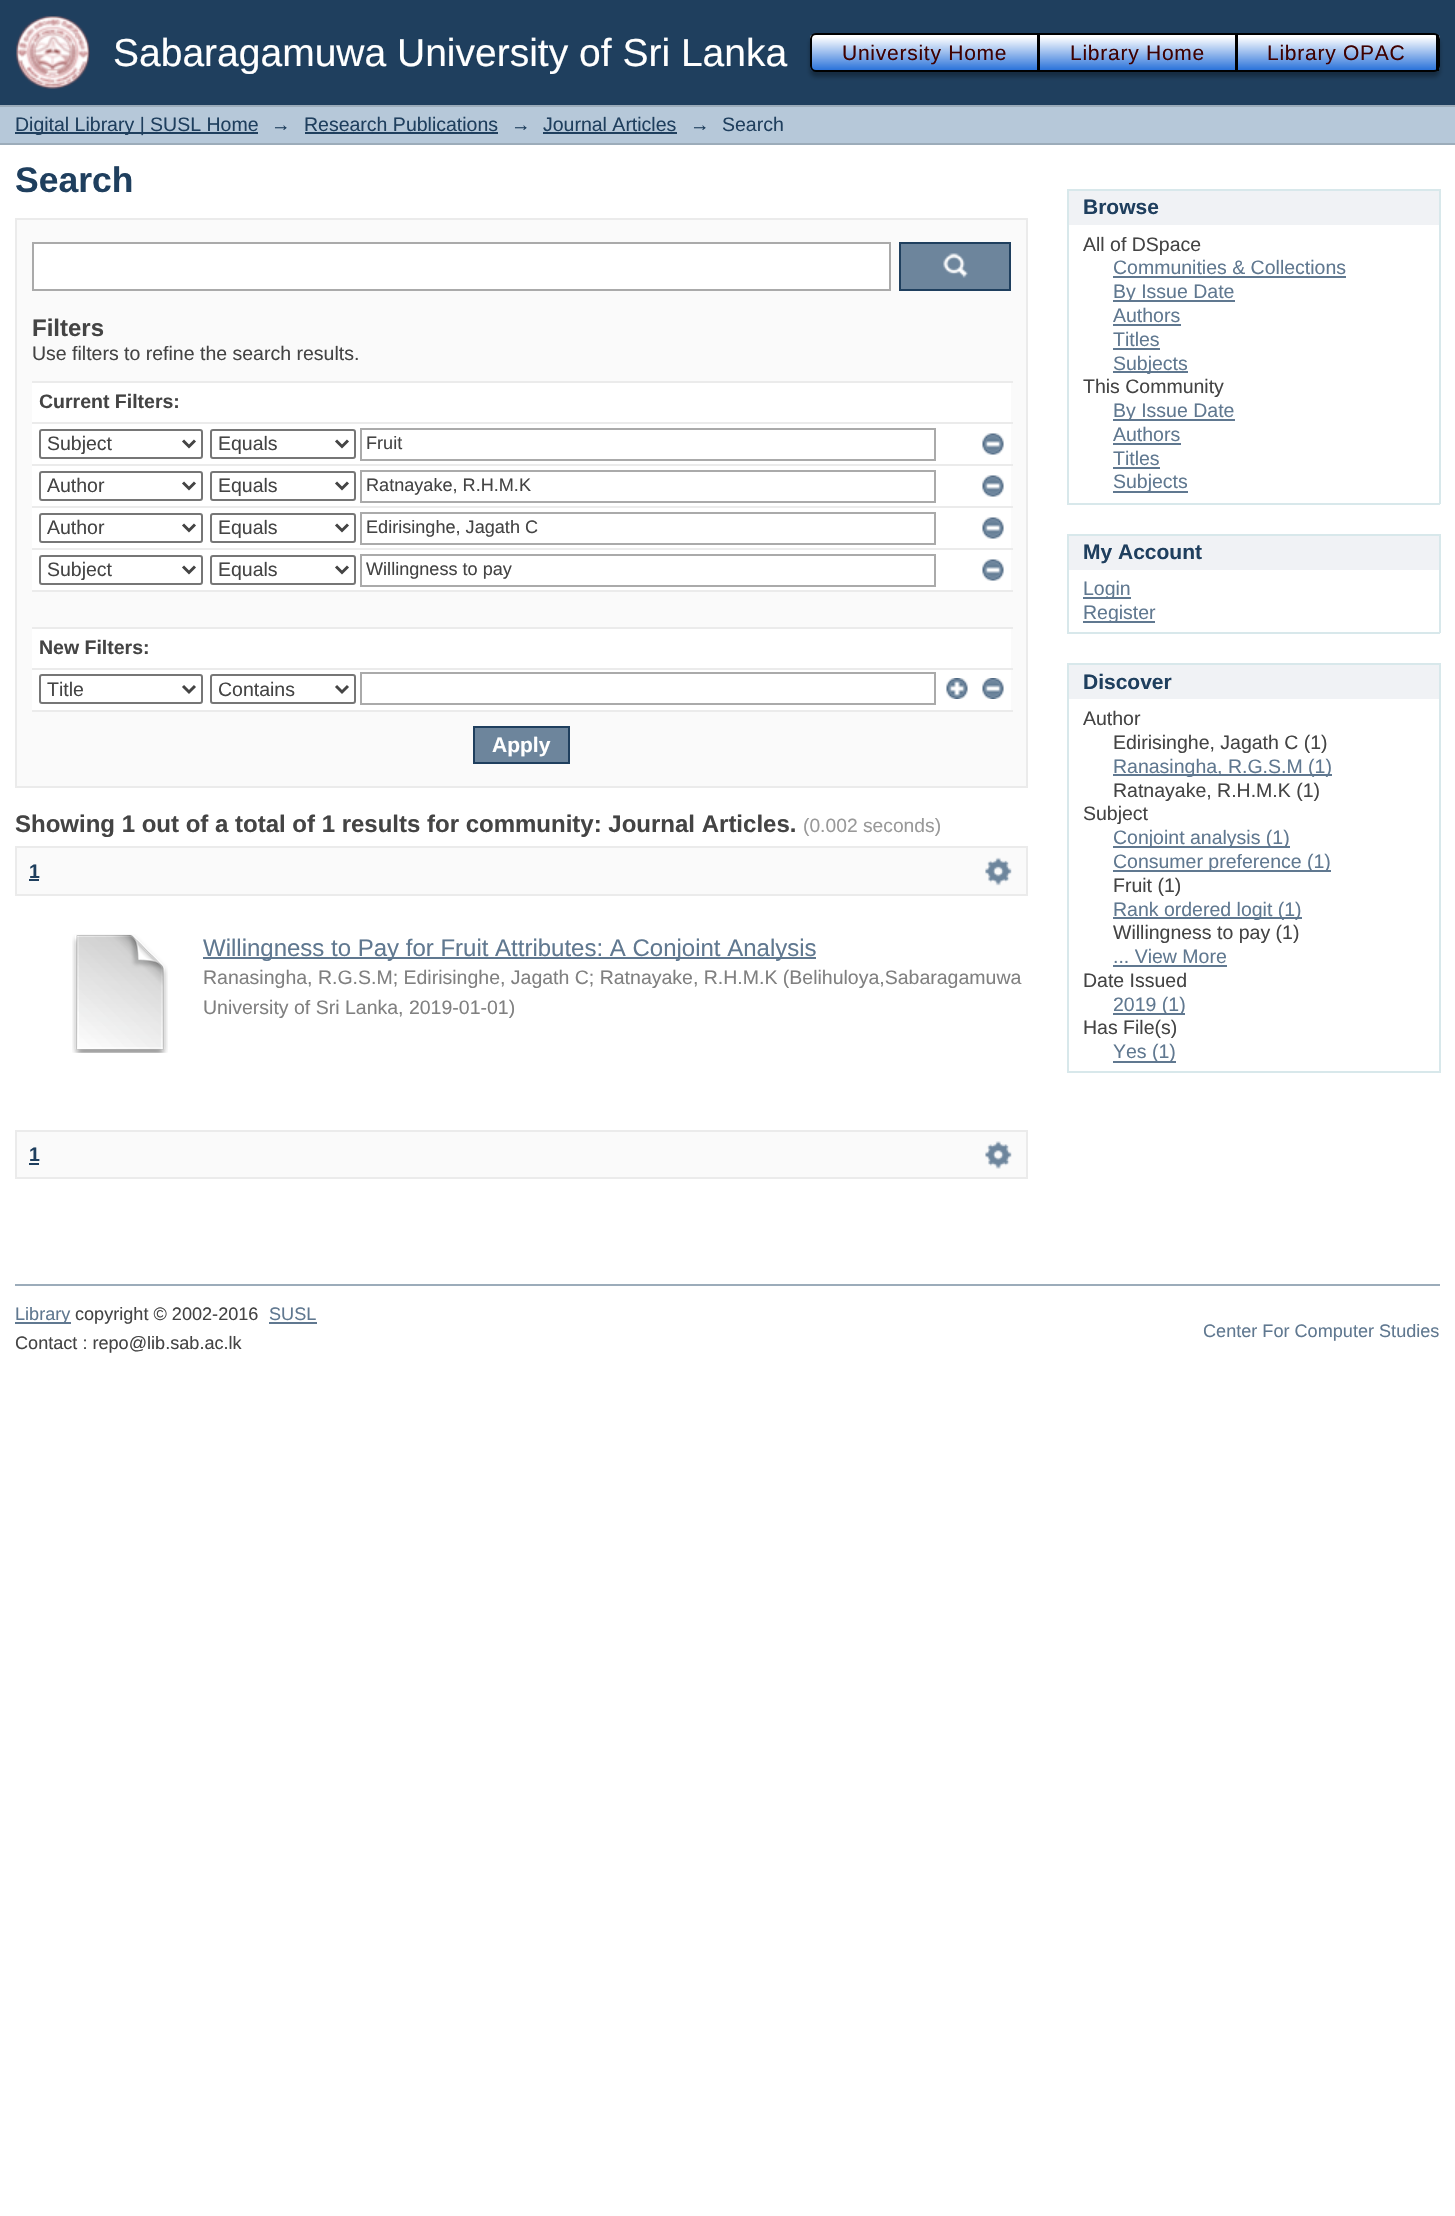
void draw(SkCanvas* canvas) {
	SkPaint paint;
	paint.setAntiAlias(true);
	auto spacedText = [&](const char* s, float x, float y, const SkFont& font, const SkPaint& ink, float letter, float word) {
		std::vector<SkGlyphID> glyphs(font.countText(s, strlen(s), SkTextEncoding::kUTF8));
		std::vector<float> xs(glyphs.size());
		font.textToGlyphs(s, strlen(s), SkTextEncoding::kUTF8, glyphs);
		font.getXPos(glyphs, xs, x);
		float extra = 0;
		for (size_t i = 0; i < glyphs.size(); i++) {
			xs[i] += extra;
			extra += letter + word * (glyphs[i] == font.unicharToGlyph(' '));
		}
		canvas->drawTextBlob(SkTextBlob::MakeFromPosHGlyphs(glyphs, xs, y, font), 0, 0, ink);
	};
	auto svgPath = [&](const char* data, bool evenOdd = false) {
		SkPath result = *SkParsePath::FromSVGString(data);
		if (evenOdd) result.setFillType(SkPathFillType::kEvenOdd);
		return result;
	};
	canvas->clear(0xffffffff);
	paint.setColor(0xff1f3f5e);
	canvas->drawRect(SkRect::MakeXYWH(0, 0, 1455, 105), paint);
	canvas->drawImageRect(SkImages::DeferredFromEncodedData(SkData::MakeFromFileName("img1.png")), SkRect::MakeXYWH(16, 15, 74, 74), SkSamplingOptions());
	SkFont f1(fontMgr->matchFamilyStyle("Liberation Sans", SkFontStyle::Normal()), 39);
	f1.setSubpixel(true);
	paint.setColor(0xffffffff);
	canvas->drawString("Sabaragamuwa University of Sri Lanka", 113, 66, f1, paint);
	paint.setColor(0x4d000000);
	paint.setMaskFilter(SkMaskFilter::MakeBlur(kNormal_SkBlurStyle, 2));
	canvas->drawRoundRect(SkRect::MakeXYWH(810, 38, 630, 39), 6, 6, paint);
	paint.setMaskFilter(nullptr);
	canvas->save();
	canvas->clipPath(svgPath("M816 33H1434C1437.5 33 1440 35.5 1440 39V66C1440 69.5 1437.5 72 1434 72H816C812.5 72 810 69.5 810 66V39C810 35.5 812.5 33 816 33Z"), true);
	{
		const SkColor colors[] = {0xffffffff, 0xff256fd9};
		const float stops[] = {0.05, 1};
		const SkPoint ends[] = {{812, 35}, {812, 71}};
		paint.setShader(SkGradientShader::MakeLinear(ends, colors, stops, 2, SkTileMode::kClamp));
		paint.setAlpha(255);
	}
	canvas->drawRect(SkRect::MakeXYWH(810, 35, 630, 36), paint);
	canvas->restore();
	paint.setStroke(true);
	paint.setStrokeWidth(2);
	paint.setShader(nullptr);
	paint.setColor(0xff000000);
	canvas->drawRoundRect(SkRect::MakeXYWH(811, 34, 628, 37), 5, 5, paint);
	paint.setStroke(false);
	canvas->drawRect(SkRect::MakeXYWH(1037, 35, 3, 36), paint);
	SkFont f2(fontMgr->matchFamilyStyle("Liberation Sans", SkFontStyle::Normal()), 21);
	f2.setSubpixel(true);
	paint.setColor(0xff3e0000);
	spacedText("University Home", 842, 60, f2, paint, 0.75, 0);
	paint.setColor(0xff000000);
	canvas->drawRect(SkRect::MakeXYWH(1235, 35, 3, 36), paint);
	paint.setColor(0xff3e0000);
	spacedText("Library Home", 1070, 60, f2, paint, 0.75, 0);
	paint.setColor(0xff000000);
	canvas->drawRect(SkRect::MakeXYWH(1436, 35, 3, 36), paint);
	paint.setColor(0xff3e0000);
	spacedText("Library OPAC", 1267, 60, f2, paint, 0.75, 0);
	paint.setColor(0xffb6c8d9);
	canvas->drawRect(SkRect::MakeXYWH(0, 107, 1455, 36), paint);
	paint.setColor(0xff9cacba);
	canvas->drawRect(SkRect::MakeXYWH(0, 105, 1455, 2), paint);
	canvas->drawRect(SkRect::MakeXYWH(0, 143, 1455, 2), paint);
	paint.setColor(0xff1f3f5e);
	canvas->drawRect(SkRect::MakeXYWH(15, 132, 243, 2), paint);
	SkFont f3(fontMgr->matchFamilyStyle("Liberation Sans", SkFontStyle::Normal()), 19.5);
	f3.setSubpixel(true);
	canvas->drawString("Digital Library | SUSL Home", 15, 131, f3, paint);
	canvas->drawString("→", 271, 131, f3, paint);
	canvas->drawString("Research Publications", 304, 131, f3, paint);
	canvas->drawRect(SkRect::MakeXYWH(305, 132, 193, 2), paint);
	canvas->drawString("→", 511, 131, f3, paint);
	canvas->drawString("Journal Articles", 543, 131, f3, paint);
	canvas->drawRect(SkRect::MakeXYWH(543, 132, 134, 2), paint);
	canvas->drawString("→", 690, 131, f3, paint);
	canvas->drawString("Search", 722, 131, f3, paint);
	SkFont f4(fontMgr->matchFamilyStyle("Liberation Sans", SkFontStyle::Bold()), 35.5);
	f4.setSubpixel(true);
	canvas->drawString("Search", 15, 192, f4, paint);
	paint.setColor(0xfffafafa);
	canvas->drawRect(SkRect::MakeXYWH(16, 219, 1011, 568), paint);
	paint.setStroke(true);
	paint.setColor(0xffebebeb);
	canvas->drawRect(SkRect::MakeXYWH(16, 219, 1011, 568), paint);
	paint.setStroke(false);
	paint.setColor(0xffffffff);
	canvas->drawRect(SkRect::MakeXYWH(33, 243, 857, 47), paint);
	paint.setStroke(true);
	paint.setColor(0xffaaaaaa);
	canvas->drawRect(SkRect::MakeXYWH(33, 243, 857, 47), paint);
	paint.setStroke(false);
	paint.setColor(0xff6d859c);
	canvas->drawRect(SkRect::MakeXYWH(901, 244, 108, 45), paint);
	canvas->drawImageRect(SkImages::DeferredFromEncodedData(SkData::MakeFromFileName("img2.png")), SkRect::MakeXYWH(943, 253, 25, 25), SkSamplingOptions());
	paint.setStroke(true);
	paint.setColor(0xff1f3f5e);
	canvas->drawRect(SkRect::MakeXYWH(900, 243, 110, 47), paint);
	SkFont f5(fontMgr->matchFamilyStyle("Liberation Sans", SkFontStyle::Bold()), 24);
	f5.setSubpixel(true);
	paint.setStroke(false);
	paint.setColor(0xff444444);
	canvas->drawString("Filters", 32, 336, f5, paint);
	canvas->drawString("Use filters to refine the search results.", 32, 360, f3, paint);
	paint.setColor(0xffffffff);
	canvas->drawRect(SkRect::MakeXYWH(32, 383, 979, 327), paint);
	paint.setColor(0xffebebeb);
	canvas->drawRect(SkRect::MakeXYWH(32, 381, 981, 2), paint);
	SkFont f6(fontMgr->matchFamilyStyle("Liberation Sans", SkFontStyle::Bold()), 19.5);
	f6.setSubpixel(true);
	paint.setColor(0xff444444);
	canvas->drawString("Current Filters:", 39, 408, f6, paint);
	paint.setColor(0xffebebeb);
	canvas->drawRect(SkRect::MakeXYWH(32, 422, 981, 2), paint);
	paint.setStroke(true);
	paint.setColor(0xff767676);
	canvas->drawRoundRect(SkRect::MakeXYWH(40, 430, 162, 28), 2, 2, paint);
	paint.setStrokeWidth(3);
	paint.setColor(0xff444444);
	canvas->drawPath(svgPath("M183 440.5L189 446.5L195 440.5"), paint);
	paint.setStroke(false);
	canvas->drawString("Subject", 47, 450, f3, paint);
	paint.setStroke(true);
	paint.setStrokeWidth(2);
	paint.setColor(0xff767676);
	canvas->drawRoundRect(SkRect::MakeXYWH(211, 430, 144, 28), 2, 2, paint);
	paint.setStrokeWidth(3);
	paint.setColor(0xff444444);
	canvas->drawPath(svgPath("M336 440.5L342 446.5L348 440.5"), paint);
	paint.setStroke(false);
	canvas->drawString("Equals", 218, 450, f3, paint);
	paint.setStroke(true);
	paint.setStrokeWidth(2);
	paint.setColor(0xffaaaaaa);
	canvas->drawRect(SkRect::MakeXYWH(361, 429, 574, 31), paint);
	SkFont f7(fontMgr->matchFamilyStyle("Liberation Sans", SkFontStyle::Normal()), 18.1);
	f7.setSubpixel(true);
	paint.setStroke(false);
	paint.setColor(0xff444444);
	canvas->drawString("Fruit", 366, 449, f7, paint);
	canvas->drawImageRect(SkImages::DeferredFromEncodedData(SkData::MakeFromFileName("img3.png")), SkRect::MakeXYWH(982, 433, 22, 22), SkSamplingOptions());
	paint.setColor(0xffebebeb);
	canvas->drawRect(SkRect::MakeXYWH(32, 464, 981, 2), paint);
	paint.setStroke(true);
	paint.setColor(0xff767676);
	canvas->drawRoundRect(SkRect::MakeXYWH(40, 472, 162, 28), 2, 2, paint);
	paint.setStrokeWidth(3);
	paint.setColor(0xff444444);
	canvas->drawPath(svgPath("M183 482.5L189 488.5L195 482.5"), paint);
	paint.setStroke(false);
	canvas->drawString("Author", 47, 492, f3, paint);
	paint.setStroke(true);
	paint.setStrokeWidth(2);
	paint.setColor(0xff767676);
	canvas->drawRoundRect(SkRect::MakeXYWH(211, 472, 144, 28), 2, 2, paint);
	paint.setStrokeWidth(3);
	paint.setColor(0xff444444);
	canvas->drawPath(svgPath("M336 482.5L342 488.5L348 482.5"), paint);
	paint.setStroke(false);
	canvas->drawString("Equals", 218, 492, f3, paint);
	paint.setStroke(true);
	paint.setStrokeWidth(2);
	paint.setColor(0xffaaaaaa);
	canvas->drawRect(SkRect::MakeXYWH(361, 471, 574, 31), paint);
	paint.setStroke(false);
	paint.setColor(0xff444444);
	canvas->drawString("Ratnayake, R.H.M.K", 366, 491, f7, paint);
	canvas->drawImageRect(SkImages::DeferredFromEncodedData(SkData::MakeFromFileName("img3.png")), SkRect::MakeXYWH(982, 475, 22, 22), SkSamplingOptions());
	paint.setColor(0xffebebeb);
	canvas->drawRect(SkRect::MakeXYWH(32, 506, 981, 2), paint);
	paint.setStroke(true);
	paint.setColor(0xff767676);
	canvas->drawRoundRect(SkRect::MakeXYWH(40, 514, 162, 28), 2, 2, paint);
	paint.setStrokeWidth(3);
	paint.setColor(0xff444444);
	canvas->drawPath(svgPath("M183 524.5L189 530.5L195 524.5"), paint);
	paint.setStroke(false);
	canvas->drawString("Author", 47, 534, f3, paint);
	paint.setStroke(true);
	paint.setStrokeWidth(2);
	paint.setColor(0xff767676);
	canvas->drawRoundRect(SkRect::MakeXYWH(211, 514, 144, 28), 2, 2, paint);
	paint.setStrokeWidth(3);
	paint.setColor(0xff444444);
	canvas->drawPath(svgPath("M336 524.5L342 530.5L348 524.5"), paint);
	paint.setStroke(false);
	canvas->drawString("Equals", 218, 534, f3, paint);
	paint.setStroke(true);
	paint.setStrokeWidth(2);
	paint.setColor(0xffaaaaaa);
	canvas->drawRect(SkRect::MakeXYWH(361, 513, 574, 31), paint);
	paint.setStroke(false);
	paint.setColor(0xff444444);
	canvas->drawString("Edirisinghe, Jagath C", 366, 533, f7, paint);
	canvas->drawImageRect(SkImages::DeferredFromEncodedData(SkData::MakeFromFileName("img3.png")), SkRect::MakeXYWH(982, 517, 22, 22), SkSamplingOptions());
	paint.setColor(0xffebebeb);
	canvas->drawRect(SkRect::MakeXYWH(32, 548, 981, 2), paint);
	paint.setStroke(true);
	paint.setColor(0xff767676);
	canvas->drawRoundRect(SkRect::MakeXYWH(40, 556, 162, 28), 2, 2, paint);
	paint.setStrokeWidth(3);
	paint.setColor(0xff444444);
	canvas->drawPath(svgPath("M183 566.5L189 572.5L195 566.5"), paint);
	paint.setStroke(false);
	canvas->drawString("Subject", 47, 576, f3, paint);
	paint.setStroke(true);
	paint.setStrokeWidth(2);
	paint.setColor(0xff767676);
	canvas->drawRoundRect(SkRect::MakeXYWH(211, 556, 144, 28), 2, 2, paint);
	paint.setStrokeWidth(3);
	paint.setColor(0xff444444);
	canvas->drawPath(svgPath("M336 566.5L342 572.5L348 566.5"), paint);
	paint.setStroke(false);
	canvas->drawString("Equals", 218, 576, f3, paint);
	paint.setStroke(true);
	paint.setStrokeWidth(2);
	paint.setColor(0xffaaaaaa);
	canvas->drawRect(SkRect::MakeXYWH(361, 555, 574, 31), paint);
	paint.setStroke(false);
	paint.setColor(0xff444444);
	canvas->drawString("Willingness to pay", 366, 575, f7, paint);
	canvas->drawImageRect(SkImages::DeferredFromEncodedData(SkData::MakeFromFileName("img3.png")), SkRect::MakeXYWH(982, 559, 22, 22), SkSamplingOptions());
	paint.setColor(0xfffafafa);
	canvas->drawRect(SkRect::MakeXYWH(32, 592, 979, 35), paint);
	paint.setColor(0xffebebeb);
	canvas->drawRect(SkRect::MakeXYWH(32, 590, 981, 2), paint);
	canvas->drawRect(SkRect::MakeXYWH(32, 627, 981, 2), paint);
	paint.setColor(0xff444444);
	canvas->drawString("New Filters:", 39, 654, f6, paint);
	paint.setColor(0xffebebeb);
	canvas->drawRect(SkRect::MakeXYWH(32, 668, 981, 2), paint);
	paint.setStroke(true);
	paint.setColor(0xff767676);
	canvas->drawRoundRect(SkRect::MakeXYWH(40, 675, 162, 28), 2, 2, paint);
	paint.setStrokeWidth(3);
	paint.setColor(0xff444444);
	canvas->drawPath(svgPath("M183 686L189 692L195 686"), paint);
	paint.setStroke(false);
	canvas->drawString("Title", 47, 696, f3, paint);
	paint.setStroke(true);
	paint.setStrokeWidth(2);
	paint.setColor(0xff767676);
	canvas->drawRoundRect(SkRect::MakeXYWH(211, 675, 144, 28), 2, 2, paint);
	paint.setStrokeWidth(3);
	paint.setColor(0xff444444);
	canvas->drawPath(svgPath("M336 686L342 692L348 686"), paint);
	paint.setStroke(false);
	canvas->drawString("Contains", 218, 696, f3, paint);
	paint.setStroke(true);
	paint.setStrokeWidth(2);
	paint.setColor(0xffaaaaaa);
	canvas->drawRect(SkRect::MakeXYWH(361, 673, 574, 31), paint);
	canvas->drawImageRect(SkImages::DeferredFromEncodedData(SkData::MakeFromFileName("img4.png")), SkRect::MakeXYWH(946, 678, 22, 21), SkSamplingOptions());
	canvas->drawImageRect(SkImages::DeferredFromEncodedData(SkData::MakeFromFileName("img5.png")), SkRect::MakeXYWH(982, 678, 22, 21), SkSamplingOptions());
	paint.setStroke(false);
	paint.setColor(0xffebebeb);
	canvas->drawRect(SkRect::MakeXYWH(32, 710, 981, 2), paint);
	paint.setColor(0xff6d859c);
	canvas->drawRect(SkRect::MakeXYWH(474, 727, 95, 36), paint);
	paint.setStroke(true);
	paint.setColor(0xff1f3f5e);
	canvas->drawRect(SkRect::MakeXYWH(474, 727, 95, 36), paint);
	SkFont f8(fontMgr->matchFamilyStyle("Liberation Sans", SkFontStyle::Bold()), 21);
	f8.setSubpixel(true);
	paint.setStroke(false);
	paint.setColor(0xffffffff);
	canvas->drawString("Apply", 492, 752, f8, paint);
	paint.setColor(0xff444444);
	canvas->drawString("Showing 1 out of a total of 1 results for community: Journal Articles.", 15, 832, f5, paint);
	SkFont f9(fontMgr->matchFamilyStyle("Liberation Sans", SkFontStyle::Normal()), 19.25);
	f9.setSubpixel(true);
	paint.setColor(0xff999999);
	canvas->drawString("(0.002 seconds)", 803, 832, f9, paint);
	paint.setColor(0xfffafafa);
	canvas->drawRect(SkRect::MakeXYWH(16, 847, 1011, 48), paint);
	paint.setStroke(true);
	paint.setColor(0xffebebeb);
	canvas->drawRect(SkRect::MakeXYWH(16, 847, 1011, 48), paint);
	paint.setStroke(false);
	paint.setColor(0xff1f3f5e);
	canvas->drawString("1", 29, 878, f6, paint);
	canvas->drawRect(SkRect::MakeXYWH(29, 879, 10, 2), paint);
	canvas->drawImageRect(SkImages::DeferredFromEncodedData(SkData::MakeFromFileName("img6.png")), SkRect::MakeXYWH(985, 857, 27, 29), SkSamplingOptions());
	canvas->drawImageRect(SkImages::DeferredFromEncodedData(SkData::MakeFromFileName("img7.png")), SkRect::MakeXYWH(72, 934, 96, 119), SkSamplingOptions());
	paint.setColor(0xff607890);
	canvas->drawRect(SkRect::MakeXYWH(203, 957, 613, 2), paint);
	SkFont f10(fontMgr->matchFamilyStyle("Liberation Sans", SkFontStyle::Normal()), 24);
	f10.setSubpixel(true);
	canvas->drawString("Willingness to Pay for Fruit Attributes: A Conjoint Analysis", 203, 956, f10, paint);
	paint.setColor(0xff808080);
	canvas->drawString("Ranasingha, R.G.S.M; Edirisinghe, Jagath C; Ratnayake, R.H.M.K (Belihuloya,Sabaragamuwa", 203, 984, f3, paint);
	canvas->drawString("University of Sri Lanka, 2019-01-01)", 203, 1014, f3, paint);
	paint.setColor(0xfffafafa);
	canvas->drawRect(SkRect::MakeXYWH(16, 1131, 1011, 47), paint);
	paint.setStroke(true);
	paint.setColor(0xffebebeb);
	canvas->drawRect(SkRect::MakeXYWH(16, 1131, 1011, 47), paint);
	paint.setStroke(false);
	paint.setColor(0xff1f3f5e);
	canvas->drawString("1", 29, 1161, f6, paint);
	canvas->drawRect(SkRect::MakeXYWH(29, 1163, 10, 2), paint);
	canvas->drawImageRect(SkImages::DeferredFromEncodedData(SkData::MakeFromFileName("img8.png")), SkRect::MakeXYWH(985, 1141, 27, 28), SkSamplingOptions());
	paint.setColor(0xfff0f2f5);
	canvas->drawRect(SkRect::MakeXYWH(1069, 191, 370, 34), paint);
	paint.setColor(0xffd8e8eb);
	canvas->drawRect(SkRect::MakeXYWH(1067, 189, 373, 2), paint);
	canvas->drawRect(SkRect::MakeXYWH(1439, 189, 2, 315), paint);
	canvas->drawRect(SkRect::MakeXYWH(1067, 189, 2, 36), paint);
	paint.setColor(0xff1f3f5e);
	canvas->drawString("Browse", 1083, 214, f8, paint);
	paint.setColor(0xffd8e8eb);
	canvas->drawRect(SkRect::MakeXYWH(1067, 503, 373, 2), paint);
	canvas->drawRect(SkRect::MakeXYWH(1067, 225, 2, 279), paint);
	paint.setColor(0xff444444);
	canvas->drawString("All of DSpace", 1083, 251, f3, paint);
	paint.setColor(0xff607890);
	canvas->drawString("Communities & Collections", 1113, 274, f3, paint);
	canvas->drawRect(SkRect::MakeXYWH(1113, 276, 233, 2), paint);
	canvas->drawRect(SkRect::MakeXYWH(1113, 300, 122, 2), paint);
	canvas->drawString("By Issue Date", 1113, 298, f3, paint);
	canvas->drawString("Authors", 1113, 322, f3, paint);
	canvas->drawRect(SkRect::MakeXYWH(1113, 324, 68, 2), paint);
	canvas->drawString("Titles", 1113, 346, f3, paint);
	canvas->drawRect(SkRect::MakeXYWH(1113, 348, 47, 2), paint);
	canvas->drawRect(SkRect::MakeXYWH(1113, 371, 75, 2), paint);
	canvas->drawString("Subjects", 1113, 370, f3, paint);
	paint.setColor(0xff444444);
	canvas->drawString("This Community", 1083, 393, f3, paint);
	paint.setColor(0xff607890);
	canvas->drawRect(SkRect::MakeXYWH(1113, 419, 122, 2), paint);
	canvas->drawString("By Issue Date", 1113, 417, f3, paint);
	canvas->drawString("Authors", 1113, 441, f3, paint);
	canvas->drawRect(SkRect::MakeXYWH(1113, 443, 68, 2), paint);
	canvas->drawString("Titles", 1113, 465, f3, paint);
	canvas->drawRect(SkRect::MakeXYWH(1113, 467, 47, 2), paint);
	canvas->drawRect(SkRect::MakeXYWH(1113, 491, 75, 2), paint);
	canvas->drawString("Subjects", 1113, 488, f3, paint);
	paint.setColor(0xfff0f2f5);
	canvas->drawRect(SkRect::MakeXYWH(1069, 536, 370, 34), paint);
	paint.setColor(0xffd8e8eb);
	canvas->drawRect(SkRect::MakeXYWH(1067, 534, 373, 2), paint);
	canvas->drawRect(SkRect::MakeXYWH(1439, 534, 2, 99), paint);
	canvas->drawRect(SkRect::MakeXYWH(1067, 534, 2, 36), paint);
	paint.setColor(0xff1f3f5e);
	canvas->drawString("My Account", 1083, 559, f8, paint);
	paint.setColor(0xffd8e8eb);
	canvas->drawRect(SkRect::MakeXYWH(1067, 632, 373, 2), paint);
	canvas->drawRect(SkRect::MakeXYWH(1067, 570, 2, 63), paint);
	paint.setColor(0xff607890);
	canvas->drawRect(SkRect::MakeXYWH(1083, 597, 48, 2), paint);
	canvas->drawString("Login", 1083, 595, f3, paint);
	canvas->drawRect(SkRect::MakeXYWH(1083, 621, 72, 2), paint);
	canvas->drawString("Register", 1083, 619, f3, paint);
	paint.setColor(0xfff0f2f5);
	canvas->drawRect(SkRect::MakeXYWH(1069, 665, 370, 34), paint);
	paint.setColor(0xffd8e8eb);
	canvas->drawRect(SkRect::MakeXYWH(1067, 663, 373, 2), paint);
	canvas->drawRect(SkRect::MakeXYWH(1439, 663, 2, 410), paint);
	canvas->drawRect(SkRect::MakeXYWH(1067, 663, 2, 36), paint);
	paint.setColor(0xff1f3f5e);
	canvas->drawString("Discover", 1083, 689, f8, paint);
	paint.setColor(0xffd8e8eb);
	canvas->drawRect(SkRect::MakeXYWH(1067, 1071, 373, 2), paint);
	canvas->drawRect(SkRect::MakeXYWH(1067, 699, 2, 374), paint);
	paint.setColor(0xff444444);
	canvas->drawString("Author", 1083, 725, f3, paint);
	canvas->drawString("Edirisinghe, Jagath C (1)", 1113, 749, f3, paint);
	paint.setColor(0xff607890);
	canvas->drawRect(SkRect::MakeXYWH(1113, 774, 219, 2), paint);
	canvas->drawString("Ranasingha, R.G.S.M (1)", 1113, 773, f3, paint);
	paint.setColor(0xff444444);
	canvas->drawString("Ratnayake, R.H.M.K (1)", 1113, 797, f3, paint);
	canvas->drawString("Subject", 1083, 820, f3, paint);
	paint.setColor(0xff607890);
	canvas->drawRect(SkRect::MakeXYWH(1113, 846, 177, 2), paint);
	canvas->drawString("Conjoint analysis (1)", 1113, 844, f3, paint);
	canvas->drawRect(SkRect::MakeXYWH(1113, 870, 218, 2), paint);
	canvas->drawString("Consumer preference (1)", 1113, 868, f3, paint);
	paint.setColor(0xff444444);
	canvas->drawString("Fruit (1)", 1113, 892, f3, paint);
	paint.setColor(0xff607890);
	canvas->drawRect(SkRect::MakeXYWH(1113, 917, 189, 2), paint);
	canvas->drawString("Rank ordered logit (1)", 1113, 916, f3, paint);
	paint.setColor(0xff444444);
	canvas->drawString("Willingness to pay (1)", 1113, 939, f3, paint);
	paint.setColor(0xff607890);
	canvas->drawString("... View More", 1113, 963, f3, paint);
	canvas->drawRect(SkRect::MakeXYWH(1113, 965, 114, 2), paint);
	paint.setColor(0xff444444);
	canvas->drawString("Date Issued", 1083, 987, f3, paint);
	paint.setColor(0xff607890);
	canvas->drawRect(SkRect::MakeXYWH(1113, 1013, 72, 2), paint);
	canvas->drawString("2019 (1)", 1113, 1011, f3, paint);
	paint.setColor(0xff444444);
	canvas->drawString("Has File(s)", 1083, 1034, f3, paint);
	paint.setColor(0xff607890);
	canvas->drawRect(SkRect::MakeXYWH(1113, 1061, 63, 2), paint);
	canvas->drawString("Yes (1)", 1113, 1058, f3, paint);
	paint.setColor(0xff9cacba);
	canvas->drawRect(SkRect::MakeXYWH(15, 1284, 1425, 2), paint);
	paint.setColor(0xff607890);
	canvas->drawRect(SkRect::MakeXYWH(15, 1322, 56, 2), paint);
	canvas->drawString("Library", 15, 1320, f7, paint);
	paint.setColor(0xff444444);
	canvas->drawString("copyright © 2002-2016", 75, 1320, f7, paint);
	paint.setColor(0xff607890);
	canvas->drawString("SUSL", 269, 1320, f7, paint);
	canvas->drawRect(SkRect::MakeXYWH(269, 1322, 48, 2), paint);
	canvas->drawString("Center For Computer Studies", 1203, 1337, f7, paint);
	paint.setColor(0xff444444);
	canvas->drawString("Contact : repo@lib.sab.ac.lk", 15, 1349, f7, paint);
}
